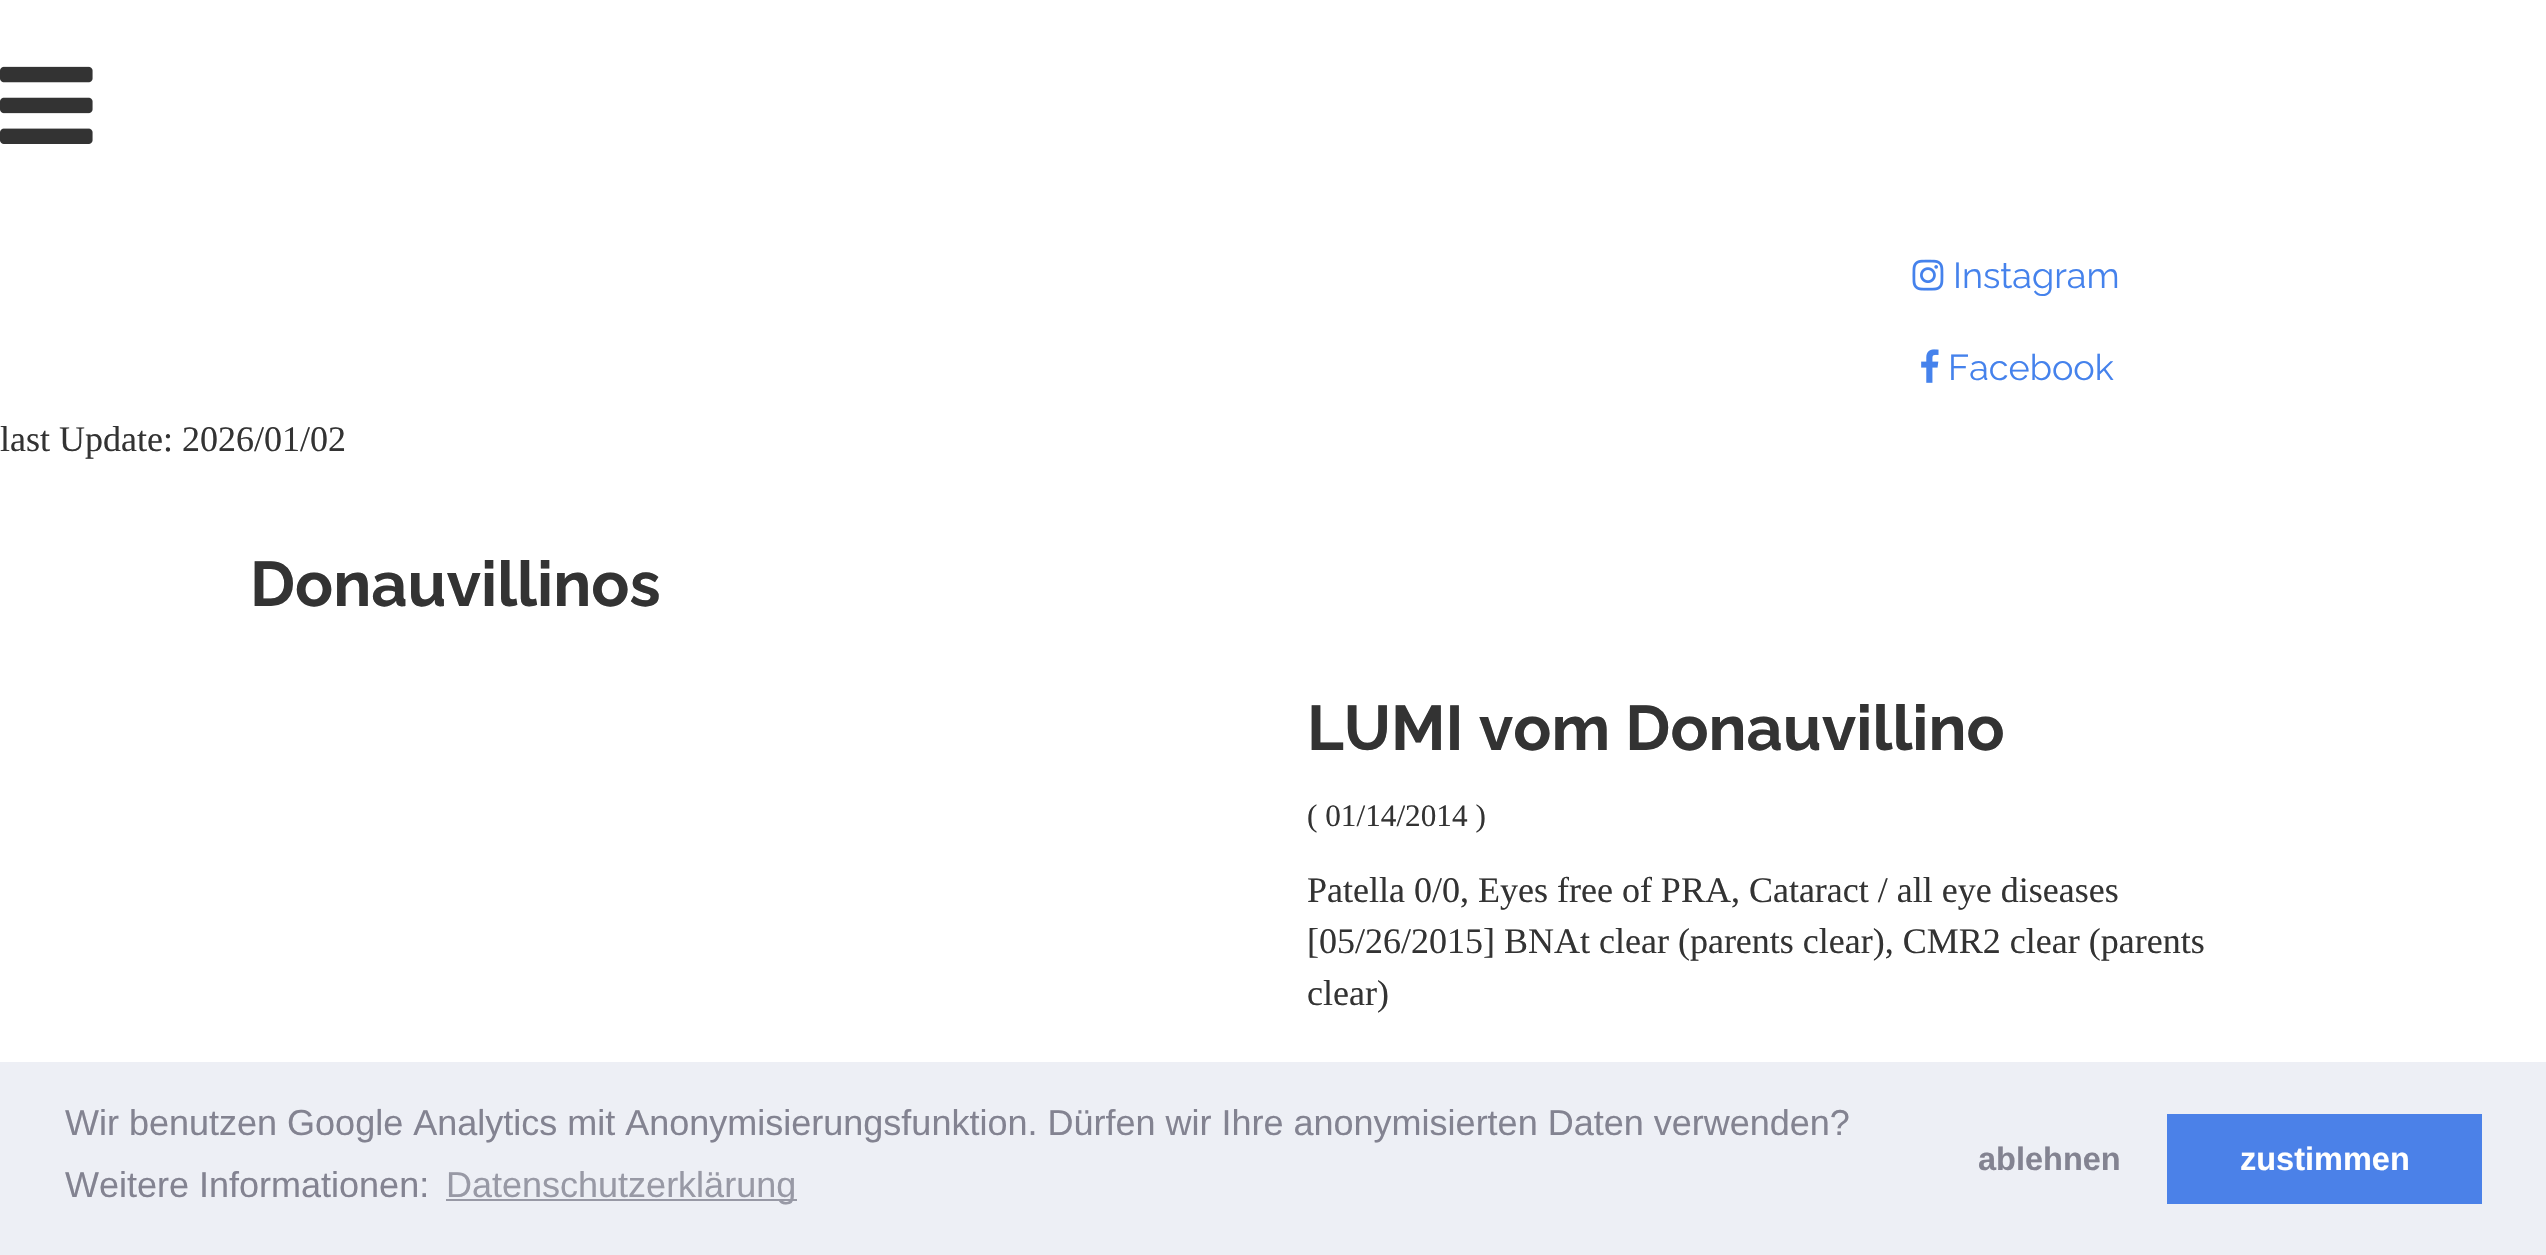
void draw(SkCanvas* canvas) {
	SkPaint paint;
	paint.setAntiAlias(true);
	canvas->clear(0xffffffff);
	canvas->drawImageRect(SkImages::DeferredFromEncodedData(SkData::MakeFromFileName("img1.png")), SkRect::MakeXYWH(0, 66, 93, 78), SkSamplingOptions());
	canvas->drawImageRect(SkImages::DeferredFromEncodedData(SkData::MakeFromFileName("img2.png")), SkRect::MakeXYWH(1912, 259, 32, 32), SkSamplingOptions());
	SkFont f1(fontMgr->matchFamilyStyle("Raleway", SkFontStyle::Normal()), 36);
	f1.setSubpixel(true);
	paint.setColor(0xff4582ec);
	canvas->drawString("Instagram", 1953, 288, f1, paint);
	canvas->drawImageRect(SkImages::DeferredFromEncodedData(SkData::MakeFromFileName("img3.png")), SkRect::MakeXYWH(1921, 349, 18, 34), SkSamplingOptions());
	canvas->drawString("Facebook", 1948, 380, f1, paint);
	SkFont f2(fontMgr->matchFamilyStyle("Liberation Serif", SkFontStyle::Normal()), 36);
	f2.setSubpixel(true);
	paint.setColor(0xff333333);
	canvas->drawString("last Update: 2026/01/02", 0, 451, f2, paint);
	SkFont f3(fontMgr->matchFamilyStyle("Raleway", SkFontStyle::Bold()), 63);
	f3.setSubpixel(true);
	canvas->drawString("Donauvillinos", 250, 606, f3, paint);
	canvas->drawString("LUMI vom Donauvillino", 1307, 750, f3, paint);
	SkFont f4(fontMgr->matchFamilyStyle("Liberation Serif", SkFontStyle::Normal()), 31.25);
	f4.setSubpixel(true);
	canvas->drawString("( 01/14/2014 )", 1307, 826, f4, paint);
	canvas->drawString("Patella 0/0, Eyes free of PRA, Cataract / all eye diseases", 1307, 902, f2, paint);
	canvas->drawString("[05/26/2015] BNAt clear (parents clear), CMR2 clear (parents", 1307, 953, f2, paint);
	canvas->drawString("clear)", 1307, 1005, f2, paint);
	paint.setColor(0xffedeff5);
	canvas->drawRect(SkRect::MakeXYWH(0, 1062, 2546, 193), paint);
	SkFont f5(fontMgr->matchFamilyStyle("Liberation Sans", SkFontStyle::Normal()), 36);
	f5.setSubpixel(true);
	paint.setColor(0xff838391);
	canvas->drawString("Wir benutzen Google Analytics mit Anonymisierungsfunktion. Dürfen wir Ihre anonymisierten Daten verwenden?", 65, 1135, f5, paint);
	canvas->drawString("Weitere Informationen:", 65, 1197, f5, paint);
	paint.setColor(0xff9899a5);
	canvas->drawRect(SkRect::MakeXYWH(446, 1199, 351, 2), paint);
	canvas->drawString("Datenschutzerklärung", 446, 1197, f5, paint);
	SkFont f6(fontMgr->matchFamilyStyle("Liberation Sans", SkFontStyle::Bold()), 32.5);
	f6.setSubpixel(true);
	paint.setColor(0xff838391);
	canvas->drawString("ablehnen", 1978, 1170, f6, paint);
	paint.setColor(0xff4b81e8);
	canvas->drawRect(SkRect::MakeXYWH(2167, 1114, 315, 90), paint);
	paint.setColor(0xffffffff);
	canvas->drawString("zustimmen", 2240, 1170, f6, paint);
}
